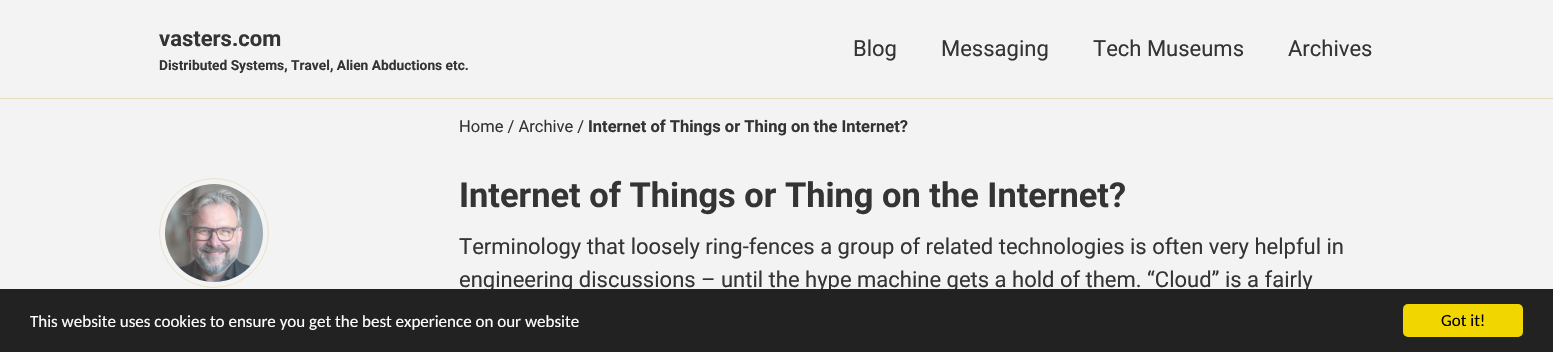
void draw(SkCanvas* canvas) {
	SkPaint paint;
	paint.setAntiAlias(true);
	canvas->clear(0xfff3f3f3);
	paint.setColor(0xffe9dcbe);
	canvas->drawRect(SkRect::MakeXYWH(0, 98, 1553, 1), paint);
	SkFont f1(fontMgr->matchFamilyStyle("Roboto", SkFontStyle::Bold()), 22);
	f1.setSubpixel(true);
	paint.setColor(0xff343434);
	canvas->drawString("vasters.com", 159, 46, f1, paint);
	SkFont f2(fontMgr->matchFamilyStyle("Roboto", SkFontStyle::Bold()), 13.75);
	f2.setSubpixel(true);
	canvas->drawString("Distributed Systems, Travel, Alien Abductions etc.", 159, 70, f2, paint);
	SkFont f3(fontMgr->matchFamilyStyle("Roboto", SkFontStyle::Normal()), 22);
	f3.setSubpixel(true);
	canvas->drawString("Blog", 853, 56, f3, paint);
	canvas->drawString("Messaging", 941, 56, f3, paint);
	canvas->drawString("Tech Museums", 1093, 56, f3, paint);
	canvas->drawString("Archives", 1288, 56, f3, paint);
	SkFont f4(fontMgr->matchFamilyStyle("Roboto", SkFontStyle::Normal()), 16.5);
	f4.setSubpixel(true);
	canvas->drawString("Home / Archive /", 459, 132, f4, paint);
	SkFont f5(fontMgr->matchFamilyStyle("Roboto", SkFontStyle::Bold()), 16.5);
	f5.setSubpixel(true);
	canvas->drawString("Internet of Things or Thing on the Internet?", 588, 132, f5, paint);
	paint.setStroke(true);
	paint.setStrokeWidth(1);
	paint.setColor(0xffece2cb);
	canvas->drawCircle(214, 233, 54.5, paint);
	canvas->drawImageRect(SkImages::DeferredFromEncodedData(SkData::MakeFromFileName("img1.png")), SkRect::MakeXYWH(165, 184, 98, 98), SkSamplingOptions());
	SkFont f6(fontMgr->matchFamilyStyle("Roboto", SkFontStyle::Bold()), 34.4);
	f6.setSubpixel(true);
	paint.setStroke(false);
	paint.setColor(0xff343434);
	canvas->drawString("Internet of Things or Thing on the Internet?", 459, 207, f6, paint);
	canvas->drawString("Terminology that loosely ring-fences a group of related technologies is often very helpful in", 459, 254, f3, paint);
	canvas->drawString("engineering discussions – until the hype machine gets a hold of them. “Cloud” is a fairly", 459, 287, f3, paint);
	paint.setColor(0xff222222);
	canvas->drawRect(SkRect::MakeXYWH(0, 289, 1553, 63), paint);
	SkFont f7(fontMgr->matchFamilyStyle("Carlito", SkFontStyle::Normal()), 17);
	f7.setSubpixel(true);
	paint.setColor(0xffffffff);
	canvas->drawString("This website uses cookies to ensure you get the best experience on our website", 30, 327, f7, paint);
	paint.setColor(0xfff1d600);
	canvas->drawRoundRect(SkRect::MakeXYWH(1403, 304, 120, 33), 5, 5, paint);
	paint.setColor(0xff000000);
	canvas->drawString("Got it!", 1441, 326, f7, paint);
}
